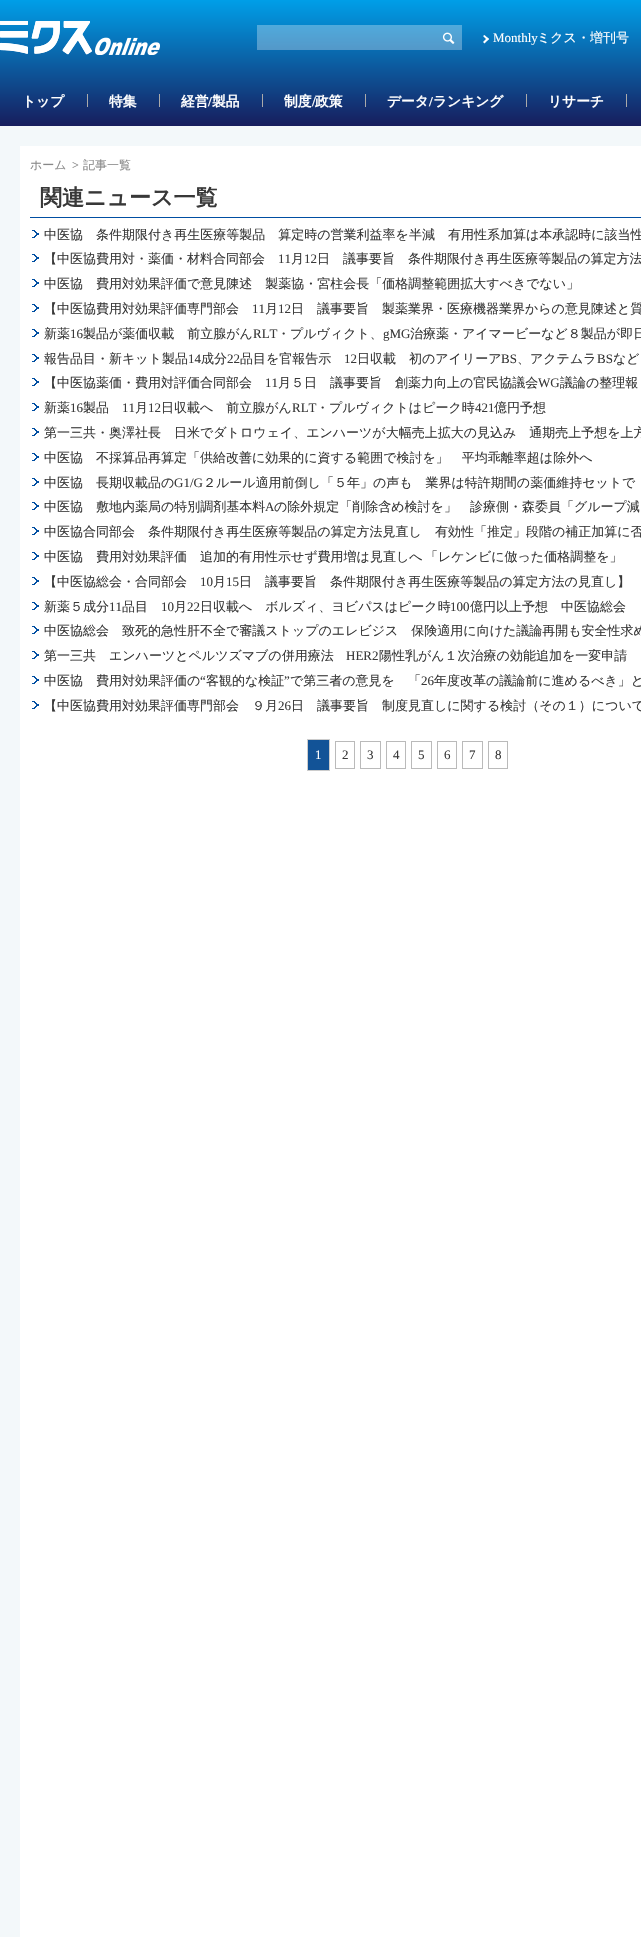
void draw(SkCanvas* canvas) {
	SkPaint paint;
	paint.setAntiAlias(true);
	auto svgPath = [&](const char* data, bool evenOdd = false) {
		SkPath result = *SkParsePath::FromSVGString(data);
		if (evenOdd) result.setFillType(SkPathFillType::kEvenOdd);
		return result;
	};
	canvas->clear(0xfff3f8fa);
	{
		const SkColor colors[] = {0xff009fe8, 0xff171d5d};
		const float stops[] = {0, 1};
		const SkPoint ends[] = {{321, 0}, {321, 126}};
		paint.setShader(SkGradientShader::MakeLinear(ends, colors, stops, 2, SkTileMode::kClamp));
		paint.setAlpha(255);
	}
	canvas->drawRect(SkRect::MakeXYWH(0, 0, 641, 126), paint);
	{
		const SkColor colors[] = {0xff4dbcef, 0xff5d618e};
		const float stops[] = {0, 1};
		const SkPoint ends[] = {{321, 0}, {321, 126}};
		paint.setShader(SkGradientShader::MakeLinear(ends, colors, stops, 2, SkTileMode::kClamp));
		paint.setAlpha(255);
	}
	canvas->drawRect(SkRect::MakeXYWH(257, 25, 205, 25), paint);
	canvas->drawImageRect(SkImages::DeferredFromEncodedData(SkData::MakeFromFileName("img1.png")), SkRect::MakeXYWH(0, 20, 160, 35), SkSamplingOptions());
	canvas->drawImageRect(SkImages::DeferredFromEncodedData(SkData::MakeFromFileName("img2.png")), SkRect::MakeXYWH(442, 32, 13, 12), SkSamplingOptions());
	paint.setShader(nullptr);
	paint.setColor(0xffffffff);
	canvas->drawPath(svgPath("M484.5 35L489 39L487.5 40.5L483 36Z"), paint);
	canvas->drawPath(svgPath("M487.5 37.5L489 39L484.5 43.5L483 42Z"), paint);
	SkFont f1(fontMgr->matchFamilyStyle("Liberation Serif", SkFontStyle::Normal()), 13);
	f1.setSubpixel(true);
	canvas->drawString("Monthly", 493, 42, f1, paint);
	SkFont f2(fontMgr->matchFamilyStyle("WenQuanYi Zen Hei", SkFontStyle(500, SkFontStyle::kNormal_Width, SkFontStyle::kUpright_Slant)), 13);
	f2.setSubpixel(true);
	canvas->drawString("ミクス・増刊号", 537, 42, f2, paint);
	SkFont f3(fontMgr->matchFamilyStyle("WenQuanYi Zen Hei", SkFontStyle::Bold()), 13.75);
	f3.setSubpixel(true);
	canvas->drawString("トップ", 22, 106, f3, paint);
	paint.setColor(0xffaaaaaa);
	canvas->drawRect(SkRect::MakeXYWH(87, 94, 1, 13), paint);
	paint.setColor(0xffffffff);
	canvas->drawString("特集", 109, 106, f3, paint);
	paint.setColor(0xffaaaaaa);
	canvas->drawRect(SkRect::MakeXYWH(159, 94, 1, 13), paint);
	paint.setColor(0xffffffff);
	canvas->drawString("経営", 181, 106, f3, paint);
	SkFont f4(fontMgr->matchFamilyStyle("Liberation Serif", SkFontStyle::Bold()), 13.75);
	f4.setSubpixel(true);
	canvas->drawString("/", 208, 106, f4, paint);
	canvas->drawString("製品", 212, 106, f3, paint);
	paint.setColor(0xffaaaaaa);
	canvas->drawRect(SkRect::MakeXYWH(262, 94, 1, 13), paint);
	paint.setColor(0xffffffff);
	canvas->drawString("制度", 284, 106, f3, paint);
	canvas->drawString("/", 312, 106, f4, paint);
	canvas->drawString("政策", 315, 106, f3, paint);
	paint.setColor(0xffaaaaaa);
	canvas->drawRect(SkRect::MakeXYWH(365, 94, 1, 13), paint);
	paint.setColor(0xffffffff);
	canvas->drawString("データ", 387, 106, f3, paint);
	canvas->drawString("/", 429, 106, f4, paint);
	canvas->drawString("ランキング", 433, 106, f3, paint);
	paint.setColor(0xffaaaaaa);
	canvas->drawRect(SkRect::MakeXYWH(526, 94, 1, 13), paint);
	paint.setColor(0xffffffff);
	canvas->drawString("リサーチ", 548, 106, f3, paint);
	paint.setColor(0xffaaaaaa);
	canvas->drawRect(SkRect::MakeXYWH(626, 94, 1, 13), paint);
	paint.setColor(0xffffffff);
	canvas->drawRect(SkRect::MakeXYWH(20, 146, 621, 1791), paint);
	SkFont f5(fontMgr->matchFamilyStyle("WenQuanYi Zen Hei", SkFontStyle(500, SkFontStyle::kNormal_Width, SkFontStyle::kUpright_Slant)), 12);
	f5.setSubpixel(true);
	paint.setColor(0xff888888);
	canvas->drawString("ホーム", 30, 169, f5, paint);
	SkFont f6(fontMgr->matchFamilyStyle("Liberation Serif", SkFontStyle::Normal()), 12);
	f6.setSubpixel(true);
	canvas->drawString(">", 72, 169, f6, paint);
	canvas->drawString("記事一覧", 83, 169, f5, paint);
	paint.setColor(0xff004ea2);
	canvas->drawRect(SkRect::MakeXYWH(30, 217, 611, 1), paint);
	SkFont f7(fontMgr->matchFamilyStyle("WenQuanYi Zen Hei", SkFontStyle::Bold()), 22);
	f7.setSubpixel(true);
	paint.setColor(0xff383838);
	canvas->drawString("関連ニュース一覧", 40, 205, f7, paint);
	{
		const SkColor colors[] = {0xffffffff, 0xff014fa2, 0xff014fa2, 0xffffffff, 0xffffffff};
		const float stops[] = {0.4, 0.4, 0.6, 0.6, 1};
		const SkPoint ends[] = {{33, 233}, {38, 239}};
		paint.setShader(SkGradientShader::MakeLinear(ends, colors, stops, 5, SkTileMode::kClamp));
		paint.setAlpha(255);
	}
	canvas->drawRect(SkRect::MakeXYWH(32, 234, 7, 4), paint);
	{
		const SkColor colors[] = {0xffffffff, 0xff014fa2, 0xff014fa2, 0xffffffff, 0xffffffff};
		const float stops[] = {0.4, 0.4, 0.6, 0.6, 1};
		const SkPoint ends[] = {{33, 235}, {38, 229}};
		paint.setShader(SkGradientShader::MakeLinear(ends, colors, stops, 5, SkTileMode::kClamp));
		paint.setAlpha(255);
	}
	canvas->drawRect(SkRect::MakeXYWH(32, 230, 7, 4), paint);
	paint.setShader(nullptr);
	paint.setColor(0xff383838);
	canvas->drawString("中医協　条件期限付き再生医療等製品　算定時の営業利益率を半減　有用性系加算は本承認時に該当性", 44, 239, f2, paint);
	{
		const SkColor colors[] = {0xffffffff, 0xff014fa2, 0xff014fa2, 0xffffffff, 0xffffffff};
		const float stops[] = {0.4, 0.4, 0.6, 0.6, 1};
		const SkPoint ends[] = {{33, 257}, {38, 263}};
		paint.setShader(SkGradientShader::MakeLinear(ends, colors, stops, 5, SkTileMode::kClamp));
		paint.setAlpha(255);
	}
	canvas->drawRect(SkRect::MakeXYWH(32, 258, 7, 4), paint);
	{
		const SkColor colors[] = {0xffffffff, 0xff014fa2, 0xff014fa2, 0xffffffff, 0xffffffff};
		const float stops[] = {0.4, 0.4, 0.6, 0.6, 1};
		const SkPoint ends[] = {{33, 259}, {38, 253}};
		paint.setShader(SkGradientShader::MakeLinear(ends, colors, stops, 5, SkTileMode::kClamp));
		paint.setAlpha(255);
	}
	canvas->drawRect(SkRect::MakeXYWH(32, 254, 7, 4), paint);
	paint.setShader(nullptr);
	paint.setColor(0xff383838);
	canvas->drawString("【中医協費用対・薬価・材料合同部会", 44, 263, f2, paint);
	canvas->drawString("11", 278, 263, f1, paint);
	canvas->drawString("月", 291, 263, f2, paint);
	canvas->drawString("12", 304, 263, f1, paint);
	canvas->drawString("日　議事要旨　条件期限付き再生医療等製品の算定方法", 317, 263, f2, paint);
	{
		const SkColor colors[] = {0xffffffff, 0xff014fa2, 0xff014fa2, 0xffffffff, 0xffffffff};
		const float stops[] = {0.4, 0.4, 0.6, 0.6, 1};
		const SkPoint ends[] = {{33, 282}, {38, 288}};
		paint.setShader(SkGradientShader::MakeLinear(ends, colors, stops, 5, SkTileMode::kClamp));
		paint.setAlpha(255);
	}
	canvas->drawRect(SkRect::MakeXYWH(32, 283, 7, 4), paint);
	{
		const SkColor colors[] = {0xffffffff, 0xff014fa2, 0xff014fa2, 0xffffffff, 0xffffffff};
		const float stops[] = {0.4, 0.4, 0.6, 0.6, 1};
		const SkPoint ends[] = {{33, 284}, {38, 278}};
		paint.setShader(SkGradientShader::MakeLinear(ends, colors, stops, 5, SkTileMode::kClamp));
		paint.setAlpha(255);
	}
	canvas->drawRect(SkRect::MakeXYWH(32, 279, 7, 4), paint);
	paint.setShader(nullptr);
	paint.setColor(0xff383838);
	canvas->drawString("中医協　費用対効果評価で意見陳述　製薬協・宮柱会長「価格調整範囲拡大すべきでない」", 44, 288, f2, paint);
	{
		const SkColor colors[] = {0xffffffff, 0xff014fa2, 0xff014fa2, 0xffffffff, 0xffffffff};
		const float stops[] = {0.4, 0.4, 0.6, 0.6, 1};
		const SkPoint ends[] = {{33, 307}, {38, 313}};
		paint.setShader(SkGradientShader::MakeLinear(ends, colors, stops, 5, SkTileMode::kClamp));
		paint.setAlpha(255);
	}
	canvas->drawRect(SkRect::MakeXYWH(32, 308, 7, 4), paint);
	{
		const SkColor colors[] = {0xffffffff, 0xff014fa2, 0xff014fa2, 0xffffffff, 0xffffffff};
		const float stops[] = {0.4, 0.4, 0.6, 0.6, 1};
		const SkPoint ends[] = {{33, 309}, {38, 303}};
		paint.setShader(SkGradientShader::MakeLinear(ends, colors, stops, 5, SkTileMode::kClamp));
		paint.setAlpha(255);
	}
	canvas->drawRect(SkRect::MakeXYWH(32, 304, 7, 4), paint);
	paint.setShader(nullptr);
	paint.setColor(0xff383838);
	canvas->drawString("【中医協費用対効果評価専門部会", 44, 313, f2, paint);
	canvas->drawString("11", 252, 313, f1, paint);
	canvas->drawString("月", 265, 313, f2, paint);
	canvas->drawString("12", 278, 313, f1, paint);
	canvas->drawString("日　議事要旨　製薬業界・医療機器業界からの意見陳述と質", 291, 313, f2, paint);
	{
		const SkColor colors[] = {0xffffffff, 0xff014fa2, 0xff014fa2, 0xffffffff, 0xffffffff};
		const float stops[] = {0.4, 0.4, 0.6, 0.6, 1};
		const SkPoint ends[] = {{33, 332}, {38, 338}};
		paint.setShader(SkGradientShader::MakeLinear(ends, colors, stops, 5, SkTileMode::kClamp));
		paint.setAlpha(255);
	}
	canvas->drawRect(SkRect::MakeXYWH(32, 333, 7, 4), paint);
	{
		const SkColor colors[] = {0xffffffff, 0xff014fa2, 0xff014fa2, 0xffffffff, 0xffffffff};
		const float stops[] = {0.4, 0.4, 0.6, 0.6, 1};
		const SkPoint ends[] = {{33, 334}, {38, 328}};
		paint.setShader(SkGradientShader::MakeLinear(ends, colors, stops, 5, SkTileMode::kClamp));
		paint.setAlpha(255);
	}
	canvas->drawRect(SkRect::MakeXYWH(32, 329, 7, 4), paint);
	paint.setShader(nullptr);
	paint.setColor(0xff383838);
	canvas->drawString("新薬", 44, 338, f2, paint);
	canvas->drawString("16", 70, 338, f1, paint);
	canvas->drawString("製品が薬価収載　前立腺がん", 83, 338, f2, paint);
	canvas->drawString("RLT", 253, 338, f1, paint);
	canvas->drawString("・プルヴィクト、", 277, 338, f2, paint);
	canvas->drawString("gMG", 383, 338, f1, paint);
	canvas->drawString("治療薬・アイマービーなど８製品が即日", 410, 338, f2, paint);
	{
		const SkColor colors[] = {0xffffffff, 0xff014fa2, 0xff014fa2, 0xffffffff, 0xffffffff};
		const float stops[] = {0.4, 0.4, 0.6, 0.6, 1};
		const SkPoint ends[] = {{33, 357}, {38, 363}};
		paint.setShader(SkGradientShader::MakeLinear(ends, colors, stops, 5, SkTileMode::kClamp));
		paint.setAlpha(255);
	}
	canvas->drawRect(SkRect::MakeXYWH(32, 358, 7, 4), paint);
	{
		const SkColor colors[] = {0xffffffff, 0xff014fa2, 0xff014fa2, 0xffffffff, 0xffffffff};
		const float stops[] = {0.4, 0.4, 0.6, 0.6, 1};
		const SkPoint ends[] = {{33, 359}, {38, 353}};
		paint.setShader(SkGradientShader::MakeLinear(ends, colors, stops, 5, SkTileMode::kClamp));
		paint.setAlpha(255);
	}
	canvas->drawRect(SkRect::MakeXYWH(32, 354, 7, 4), paint);
	paint.setShader(nullptr);
	paint.setColor(0xff383838);
	canvas->drawString("報告品目・新キット製品", 44, 363, f2, paint);
	canvas->drawString("14", 188, 363, f1, paint);
	canvas->drawString("成分", 201, 363, f2, paint);
	canvas->drawString("22", 227, 363, f1, paint);
	canvas->drawString("品目を官報告示", 240, 363, f2, paint);
	canvas->drawString("12", 344, 363, f1, paint);
	canvas->drawString("日収載　初のアイリーア", 357, 363, f2, paint);
	canvas->drawString("BS", 501, 363, f1, paint);
	canvas->drawString("、アクテムラ", 517, 363, f2, paint);
	canvas->drawString("BS", 597, 363, f1, paint);
	canvas->drawString("など", 613, 363, f2, paint);
	{
		const SkColor colors[] = {0xffffffff, 0xff014fa2, 0xff014fa2, 0xffffffff, 0xffffffff};
		const float stops[] = {0.4, 0.4, 0.6, 0.6, 1};
		const SkPoint ends[] = {{33, 381}, {38, 387}};
		paint.setShader(SkGradientShader::MakeLinear(ends, colors, stops, 5, SkTileMode::kClamp));
		paint.setAlpha(255);
	}
	canvas->drawRect(SkRect::MakeXYWH(32, 382, 7, 4), paint);
	{
		const SkColor colors[] = {0xffffffff, 0xff014fa2, 0xff014fa2, 0xffffffff, 0xffffffff};
		const float stops[] = {0.4, 0.4, 0.6, 0.6, 1};
		const SkPoint ends[] = {{33, 383}, {38, 377}};
		paint.setShader(SkGradientShader::MakeLinear(ends, colors, stops, 5, SkTileMode::kClamp));
		paint.setAlpha(255);
	}
	canvas->drawRect(SkRect::MakeXYWH(32, 378, 7, 4), paint);
	paint.setShader(nullptr);
	paint.setColor(0xff383838);
	canvas->drawString("【中医協薬価・費用対評価合同部会", 44, 387, f2, paint);
	canvas->drawString("11", 265, 387, f1, paint);
	canvas->drawString("月５日　議事要旨　創薬力向上の官民協議会", 278, 387, f2, paint);
	canvas->drawString("WG", 538, 387, f1, paint);
	canvas->drawString("議論の整理報", 560, 387, f2, paint);
	{
		const SkColor colors[] = {0xffffffff, 0xff014fa2, 0xff014fa2, 0xffffffff, 0xffffffff};
		const float stops[] = {0.4, 0.4, 0.6, 0.6, 1};
		const SkPoint ends[] = {{33, 406}, {38, 412}};
		paint.setShader(SkGradientShader::MakeLinear(ends, colors, stops, 5, SkTileMode::kClamp));
		paint.setAlpha(255);
	}
	canvas->drawRect(SkRect::MakeXYWH(32, 407, 7, 4), paint);
	{
		const SkColor colors[] = {0xffffffff, 0xff014fa2, 0xff014fa2, 0xffffffff, 0xffffffff};
		const float stops[] = {0.4, 0.4, 0.6, 0.6, 1};
		const SkPoint ends[] = {{33, 408}, {38, 402}};
		paint.setShader(SkGradientShader::MakeLinear(ends, colors, stops, 5, SkTileMode::kClamp));
		paint.setAlpha(255);
	}
	canvas->drawRect(SkRect::MakeXYWH(32, 403, 7, 4), paint);
	paint.setShader(nullptr);
	paint.setColor(0xff383838);
	canvas->drawString("新薬", 44, 412, f2, paint);
	canvas->drawString("16", 70, 412, f1, paint);
	canvas->drawString("製品", 83, 412, f2, paint);
	canvas->drawString("11", 122, 412, f1, paint);
	canvas->drawString("月", 135, 412, f2, paint);
	canvas->drawString("12", 148, 412, f1, paint);
	canvas->drawString("日収載へ　前立腺がん", 161, 412, f2, paint);
	canvas->drawString("RLT", 292, 412, f1, paint);
	canvas->drawString("・プルヴィクトはピーク時", 316, 412, f2, paint);
	canvas->drawString("421", 475, 412, f1, paint);
	canvas->drawString("億円予想", 494, 412, f2, paint);
	{
		const SkColor colors[] = {0xffffffff, 0xff014fa2, 0xff014fa2, 0xffffffff, 0xffffffff};
		const float stops[] = {0.4, 0.4, 0.6, 0.6, 1};
		const SkPoint ends[] = {{33, 431}, {38, 437}};
		paint.setShader(SkGradientShader::MakeLinear(ends, colors, stops, 5, SkTileMode::kClamp));
		paint.setAlpha(255);
	}
	canvas->drawRect(SkRect::MakeXYWH(32, 432, 7, 4), paint);
	{
		const SkColor colors[] = {0xffffffff, 0xff014fa2, 0xff014fa2, 0xffffffff, 0xffffffff};
		const float stops[] = {0.4, 0.4, 0.6, 0.6, 1};
		const SkPoint ends[] = {{33, 433}, {38, 427}};
		paint.setShader(SkGradientShader::MakeLinear(ends, colors, stops, 5, SkTileMode::kClamp));
		paint.setAlpha(255);
	}
	canvas->drawRect(SkRect::MakeXYWH(32, 428, 7, 4), paint);
	paint.setShader(nullptr);
	paint.setColor(0xff383838);
	canvas->drawString("第一三共・奥澤社長　日米でダトロウェイ、エンハーツが大幅売上拡大の見込み　通期売上予想を上方", 44, 437, f2, paint);
	{
		const SkColor colors[] = {0xffffffff, 0xff014fa2, 0xff014fa2, 0xffffffff, 0xffffffff};
		const float stops[] = {0.4, 0.4, 0.6, 0.6, 1};
		const SkPoint ends[] = {{33, 456}, {38, 462}};
		paint.setShader(SkGradientShader::MakeLinear(ends, colors, stops, 5, SkTileMode::kClamp));
		paint.setAlpha(255);
	}
	canvas->drawRect(SkRect::MakeXYWH(32, 457, 7, 4), paint);
	{
		const SkColor colors[] = {0xffffffff, 0xff014fa2, 0xff014fa2, 0xffffffff, 0xffffffff};
		const float stops[] = {0.4, 0.4, 0.6, 0.6, 1};
		const SkPoint ends[] = {{33, 458}, {38, 452}};
		paint.setShader(SkGradientShader::MakeLinear(ends, colors, stops, 5, SkTileMode::kClamp));
		paint.setAlpha(255);
	}
	canvas->drawRect(SkRect::MakeXYWH(32, 453, 7, 4), paint);
	paint.setShader(nullptr);
	paint.setColor(0xff383838);
	canvas->drawString("中医協　不採算品再算定「供給改善に効果的に資する範囲で検討を」　平均乖離率超は除外へ", 44, 462, f2, paint);
	{
		const SkColor colors[] = {0xffffffff, 0xff014fa2, 0xff014fa2, 0xffffffff, 0xffffffff};
		const float stops[] = {0.4, 0.4, 0.6, 0.6, 1};
		const SkPoint ends[] = {{33, 481}, {38, 487}};
		paint.setShader(SkGradientShader::MakeLinear(ends, colors, stops, 5, SkTileMode::kClamp));
		paint.setAlpha(255);
	}
	canvas->drawRect(SkRect::MakeXYWH(32, 482, 7, 4), paint);
	{
		const SkColor colors[] = {0xffffffff, 0xff014fa2, 0xff014fa2, 0xffffffff, 0xffffffff};
		const float stops[] = {0.4, 0.4, 0.6, 0.6, 1};
		const SkPoint ends[] = {{33, 483}, {38, 477}};
		paint.setShader(SkGradientShader::MakeLinear(ends, colors, stops, 5, SkTileMode::kClamp));
		paint.setAlpha(255);
	}
	canvas->drawRect(SkRect::MakeXYWH(32, 478, 7, 4), paint);
	paint.setShader(nullptr);
	paint.setColor(0xff383838);
	canvas->drawString("中医協　長期収載品の", 44, 487, f2, paint);
	canvas->drawString("G1/G", 174, 487, f1, paint);
	canvas->drawString("２ルール適用前倒し「５年」の声も　業界は特許期間の薬価維持セットで", 203, 487, f2, paint);
	{
		const SkColor colors[] = {0xffffffff, 0xff014fa2, 0xff014fa2, 0xffffffff, 0xffffffff};
		const float stops[] = {0.4, 0.4, 0.6, 0.6, 1};
		const SkPoint ends[] = {{33, 505}, {38, 511}};
		paint.setShader(SkGradientShader::MakeLinear(ends, colors, stops, 5, SkTileMode::kClamp));
		paint.setAlpha(255);
	}
	canvas->drawRect(SkRect::MakeXYWH(32, 506, 7, 4), paint);
	{
		const SkColor colors[] = {0xffffffff, 0xff014fa2, 0xff014fa2, 0xffffffff, 0xffffffff};
		const float stops[] = {0.4, 0.4, 0.6, 0.6, 1};
		const SkPoint ends[] = {{33, 507}, {38, 501}};
		paint.setShader(SkGradientShader::MakeLinear(ends, colors, stops, 5, SkTileMode::kClamp));
		paint.setAlpha(255);
	}
	canvas->drawRect(SkRect::MakeXYWH(32, 502, 7, 4), paint);
	paint.setShader(nullptr);
	paint.setColor(0xff383838);
	canvas->drawString("中医協　敷地内薬局の特別調剤基本料", 44, 511, f2, paint);
	canvas->drawString("A", 265, 511, f1, paint);
	canvas->drawString("の除外規定「削除含め検討を」　診療側・森委員「グループ減", 274, 511, f2, paint);
	{
		const SkColor colors[] = {0xffffffff, 0xff014fa2, 0xff014fa2, 0xffffffff, 0xffffffff};
		const float stops[] = {0.4, 0.4, 0.6, 0.6, 1};
		const SkPoint ends[] = {{33, 530}, {38, 536}};
		paint.setShader(SkGradientShader::MakeLinear(ends, colors, stops, 5, SkTileMode::kClamp));
		paint.setAlpha(255);
	}
	canvas->drawRect(SkRect::MakeXYWH(32, 531, 7, 4), paint);
	{
		const SkColor colors[] = {0xffffffff, 0xff014fa2, 0xff014fa2, 0xffffffff, 0xffffffff};
		const float stops[] = {0.4, 0.4, 0.6, 0.6, 1};
		const SkPoint ends[] = {{33, 532}, {38, 526}};
		paint.setShader(SkGradientShader::MakeLinear(ends, colors, stops, 5, SkTileMode::kClamp));
		paint.setAlpha(255);
	}
	canvas->drawRect(SkRect::MakeXYWH(32, 527, 7, 4), paint);
	paint.setShader(nullptr);
	paint.setColor(0xff383838);
	canvas->drawString("中医協合同部会　条件期限付き再生医療等製品の算定方法見直し　有効性「推定」段階の補正加算に否", 44, 536, f2, paint);
	{
		const SkColor colors[] = {0xffffffff, 0xff014fa2, 0xff014fa2, 0xffffffff, 0xffffffff};
		const float stops[] = {0.4, 0.4, 0.6, 0.6, 1};
		const SkPoint ends[] = {{33, 555}, {38, 561}};
		paint.setShader(SkGradientShader::MakeLinear(ends, colors, stops, 5, SkTileMode::kClamp));
		paint.setAlpha(255);
	}
	canvas->drawRect(SkRect::MakeXYWH(32, 556, 7, 4), paint);
	{
		const SkColor colors[] = {0xffffffff, 0xff014fa2, 0xff014fa2, 0xffffffff, 0xffffffff};
		const float stops[] = {0.4, 0.4, 0.6, 0.6, 1};
		const SkPoint ends[] = {{33, 557}, {38, 551}};
		paint.setShader(SkGradientShader::MakeLinear(ends, colors, stops, 5, SkTileMode::kClamp));
		paint.setAlpha(255);
	}
	canvas->drawRect(SkRect::MakeXYWH(32, 552, 7, 4), paint);
	paint.setShader(nullptr);
	paint.setColor(0xff383838);
	canvas->drawString("中医協　費用対効果評価　追加的有用性示せず費用増は見直しへ", 44, 561, f2, paint);
	canvas->drawString("「レケンビに倣った価格調整を」", 425, 561, f2, paint);
	{
		const SkColor colors[] = {0xffffffff, 0xff014fa2, 0xff014fa2, 0xffffffff, 0xffffffff};
		const float stops[] = {0.4, 0.4, 0.6, 0.6, 1};
		const SkPoint ends[] = {{33, 580}, {38, 586}};
		paint.setShader(SkGradientShader::MakeLinear(ends, colors, stops, 5, SkTileMode::kClamp));
		paint.setAlpha(255);
	}
	canvas->drawRect(SkRect::MakeXYWH(32, 581, 7, 4), paint);
	{
		const SkColor colors[] = {0xffffffff, 0xff014fa2, 0xff014fa2, 0xffffffff, 0xffffffff};
		const float stops[] = {0.4, 0.4, 0.6, 0.6, 1};
		const SkPoint ends[] = {{33, 582}, {38, 576}};
		paint.setShader(SkGradientShader::MakeLinear(ends, colors, stops, 5, SkTileMode::kClamp));
		paint.setAlpha(255);
	}
	canvas->drawRect(SkRect::MakeXYWH(32, 577, 7, 4), paint);
	paint.setShader(nullptr);
	paint.setColor(0xff383838);
	canvas->drawString("【中医協総会・合同部会", 44, 586, f2, paint);
	canvas->drawString("10", 200, 586, f1, paint);
	canvas->drawString("月", 213, 586, f2, paint);
	canvas->drawString("15", 226, 586, f1, paint);
	canvas->drawString("日　議事要旨　条件期限付き再生医療等製品の算定方法の見直し】", 239, 586, f2, paint);
	{
		const SkColor colors[] = {0xffffffff, 0xff014fa2, 0xff014fa2, 0xffffffff, 0xffffffff};
		const float stops[] = {0.4, 0.4, 0.6, 0.6, 1};
		const SkPoint ends[] = {{33, 605}, {38, 611}};
		paint.setShader(SkGradientShader::MakeLinear(ends, colors, stops, 5, SkTileMode::kClamp));
		paint.setAlpha(255);
	}
	canvas->drawRect(SkRect::MakeXYWH(32, 606, 7, 4), paint);
	{
		const SkColor colors[] = {0xffffffff, 0xff014fa2, 0xff014fa2, 0xffffffff, 0xffffffff};
		const float stops[] = {0.4, 0.4, 0.6, 0.6, 1};
		const SkPoint ends[] = {{33, 607}, {38, 601}};
		paint.setShader(SkGradientShader::MakeLinear(ends, colors, stops, 5, SkTileMode::kClamp));
		paint.setAlpha(255);
	}
	canvas->drawRect(SkRect::MakeXYWH(32, 602, 7, 4), paint);
	paint.setShader(nullptr);
	paint.setColor(0xff383838);
	canvas->drawString("新薬５成分", 44, 611, f2, paint);
	canvas->drawString("11", 109, 611, f1, paint);
	canvas->drawString("品目", 122, 611, f2, paint);
	canvas->drawString("10", 161, 611, f1, paint);
	canvas->drawString("月", 174, 611, f2, paint);
	canvas->drawString("22", 187, 611, f1, paint);
	canvas->drawString("日収載へ　ボルズィ、ヨビパスはピーク時", 200, 611, f2, paint);
	canvas->drawString("100", 450, 611, f1, paint);
	canvas->drawString("億円以上予想　中医協総会", 470, 611, f2, paint);
	{
		const SkColor colors[] = {0xffffffff, 0xff014fa2, 0xff014fa2, 0xffffffff, 0xffffffff};
		const float stops[] = {0.4, 0.4, 0.6, 0.6, 1};
		const SkPoint ends[] = {{33, 629}, {38, 635}};
		paint.setShader(SkGradientShader::MakeLinear(ends, colors, stops, 5, SkTileMode::kClamp));
		paint.setAlpha(255);
	}
	canvas->drawRect(SkRect::MakeXYWH(32, 630, 7, 4), paint);
	{
		const SkColor colors[] = {0xffffffff, 0xff014fa2, 0xff014fa2, 0xffffffff, 0xffffffff};
		const float stops[] = {0.4, 0.4, 0.6, 0.6, 1};
		const SkPoint ends[] = {{33, 631}, {38, 625}};
		paint.setShader(SkGradientShader::MakeLinear(ends, colors, stops, 5, SkTileMode::kClamp));
		paint.setAlpha(255);
	}
	canvas->drawRect(SkRect::MakeXYWH(32, 626, 7, 4), paint);
	paint.setShader(nullptr);
	paint.setColor(0xff383838);
	canvas->drawString("中医協総会　致死的急性肝不全で審議ストップのエレビジス　保険適用に向けた議論再開も安全性求め", 44, 635, f2, paint);
	{
		const SkColor colors[] = {0xffffffff, 0xff014fa2, 0xff014fa2, 0xffffffff, 0xffffffff};
		const float stops[] = {0.4, 0.4, 0.6, 0.6, 1};
		const SkPoint ends[] = {{33, 654}, {38, 660}};
		paint.setShader(SkGradientShader::MakeLinear(ends, colors, stops, 5, SkTileMode::kClamp));
		paint.setAlpha(255);
	}
	canvas->drawRect(SkRect::MakeXYWH(32, 655, 7, 4), paint);
	{
		const SkColor colors[] = {0xffffffff, 0xff014fa2, 0xff014fa2, 0xffffffff, 0xffffffff};
		const float stops[] = {0.4, 0.4, 0.6, 0.6, 1};
		const SkPoint ends[] = {{33, 656}, {38, 650}};
		paint.setShader(SkGradientShader::MakeLinear(ends, colors, stops, 5, SkTileMode::kClamp));
		paint.setAlpha(255);
	}
	canvas->drawRect(SkRect::MakeXYWH(32, 651, 7, 4), paint);
	paint.setShader(nullptr);
	paint.setColor(0xff383838);
	canvas->drawString("第一三共　エンハーツとペルツズマブの併用療法", 44, 660, f2, paint);
	canvas->drawString("HER2", 346, 660, f1, paint);
	canvas->drawString("陽性乳がん１次治療の効能追加を一変申請", 379, 660, f2, paint);
	{
		const SkColor colors[] = {0xffffffff, 0xff014fa2, 0xff014fa2, 0xffffffff, 0xffffffff};
		const float stops[] = {0.4, 0.4, 0.6, 0.6, 1};
		const SkPoint ends[] = {{33, 679}, {38, 685}};
		paint.setShader(SkGradientShader::MakeLinear(ends, colors, stops, 5, SkTileMode::kClamp));
		paint.setAlpha(255);
	}
	canvas->drawRect(SkRect::MakeXYWH(32, 680, 7, 4), paint);
	{
		const SkColor colors[] = {0xffffffff, 0xff014fa2, 0xff014fa2, 0xffffffff, 0xffffffff};
		const float stops[] = {0.4, 0.4, 0.6, 0.6, 1};
		const SkPoint ends[] = {{33, 681}, {38, 675}};
		paint.setShader(SkGradientShader::MakeLinear(ends, colors, stops, 5, SkTileMode::kClamp));
		paint.setAlpha(255);
	}
	canvas->drawRect(SkRect::MakeXYWH(32, 676, 7, 4), paint);
	paint.setShader(nullptr);
	paint.setColor(0xff383838);
	canvas->drawString("中医協　費用対効果評価の", 44, 685, f2, paint);
	canvas->drawString("“", 200, 685, f1, paint);
	canvas->drawString("客観的な検証", 206, 685, f2, paint);
	canvas->drawString("”", 284, 685, f1, paint);
	canvas->drawString("で第三者の意見を　「", 290, 685, f2, paint);
	canvas->drawString("26", 421, 685, f1, paint);
	canvas->drawString("年度改革の議論前に進めるべき」と", 434, 685, f2, paint);
	{
		const SkColor colors[] = {0xffffffff, 0xff014fa2, 0xff014fa2, 0xffffffff, 0xffffffff};
		const float stops[] = {0.4, 0.4, 0.6, 0.6, 1};
		const SkPoint ends[] = {{33, 704}, {38, 710}};
		paint.setShader(SkGradientShader::MakeLinear(ends, colors, stops, 5, SkTileMode::kClamp));
		paint.setAlpha(255);
	}
	canvas->drawRect(SkRect::MakeXYWH(32, 705, 7, 4), paint);
	{
		const SkColor colors[] = {0xffffffff, 0xff014fa2, 0xff014fa2, 0xffffffff, 0xffffffff};
		const float stops[] = {0.4, 0.4, 0.6, 0.6, 1};
		const SkPoint ends[] = {{33, 706}, {38, 700}};
		paint.setShader(SkGradientShader::MakeLinear(ends, colors, stops, 5, SkTileMode::kClamp));
		paint.setAlpha(255);
	}
	canvas->drawRect(SkRect::MakeXYWH(32, 701, 7, 4), paint);
	paint.setShader(nullptr);
	paint.setColor(0xff383838);
	canvas->drawString("【中医協費用対効果評価専門部会　９月", 44, 710, f2, paint);
	canvas->drawString("26", 278, 710, f1, paint);
	canvas->drawString("日　議事要旨　制度見直しに関する検討（その１）について", 291, 710, f2, paint);
	paint.setColor(0xff125397);
	canvas->drawRect(SkRect::MakeXYWH(307.5, 739.5, 22, 31), paint);
	paint.setStroke(true);
	paint.setStrokeWidth(1);
	paint.setColor(0xffcccccc);
	canvas->drawRect(SkRect::MakeXYWH(307.5, 739.5, 22, 31), paint);
	paint.setStroke(false);
	paint.setColor(0xffffffff);
	canvas->drawString("1", 315, 759, f1, paint);
	paint.setStroke(true);
	paint.setColor(0xffbababa);
	canvas->drawRect(SkRect::MakeXYWH(335.5, 741.5, 19, 27), paint);
	paint.setStroke(false);
	paint.setColor(0xff383838);
	canvas->drawString("2", 342, 759, f1, paint);
	paint.setStroke(true);
	paint.setColor(0xffbababa);
	canvas->drawRect(SkRect::MakeXYWH(360.5, 741.5, 20, 27), paint);
	paint.setStroke(false);
	paint.setColor(0xff383838);
	canvas->drawString("3", 367, 759, f1, paint);
	paint.setStroke(true);
	paint.setColor(0xffbababa);
	canvas->drawRect(SkRect::MakeXYWH(386.5, 741.5, 19, 27), paint);
	paint.setStroke(false);
	paint.setColor(0xff383838);
	canvas->drawString("4", 393, 759, f1, paint);
	paint.setStroke(true);
	paint.setColor(0xffbababa);
	canvas->drawRect(SkRect::MakeXYWH(411.5, 741.5, 20, 27), paint);
	paint.setStroke(false);
	paint.setColor(0xff383838);
	canvas->drawString("5", 418, 759, f1, paint);
	paint.setStroke(true);
	paint.setColor(0xffbababa);
	canvas->drawRect(SkRect::MakeXYWH(437.5, 741.5, 19, 27), paint);
	paint.setStroke(false);
	paint.setColor(0xff383838);
	canvas->drawString("6", 444, 759, f1, paint);
	paint.setStroke(true);
	paint.setColor(0xffbababa);
	canvas->drawRect(SkRect::MakeXYWH(462.5, 741.5, 20, 27), paint);
	paint.setStroke(false);
	paint.setColor(0xff383838);
	canvas->drawString("7", 469, 759, f1, paint);
	paint.setStroke(true);
	paint.setColor(0xffbababa);
	canvas->drawRect(SkRect::MakeXYWH(488.5, 741.5, 19, 27), paint);
	paint.setStroke(false);
	paint.setColor(0xff383838);
	canvas->drawString("8", 495, 759, f1, paint);
}
